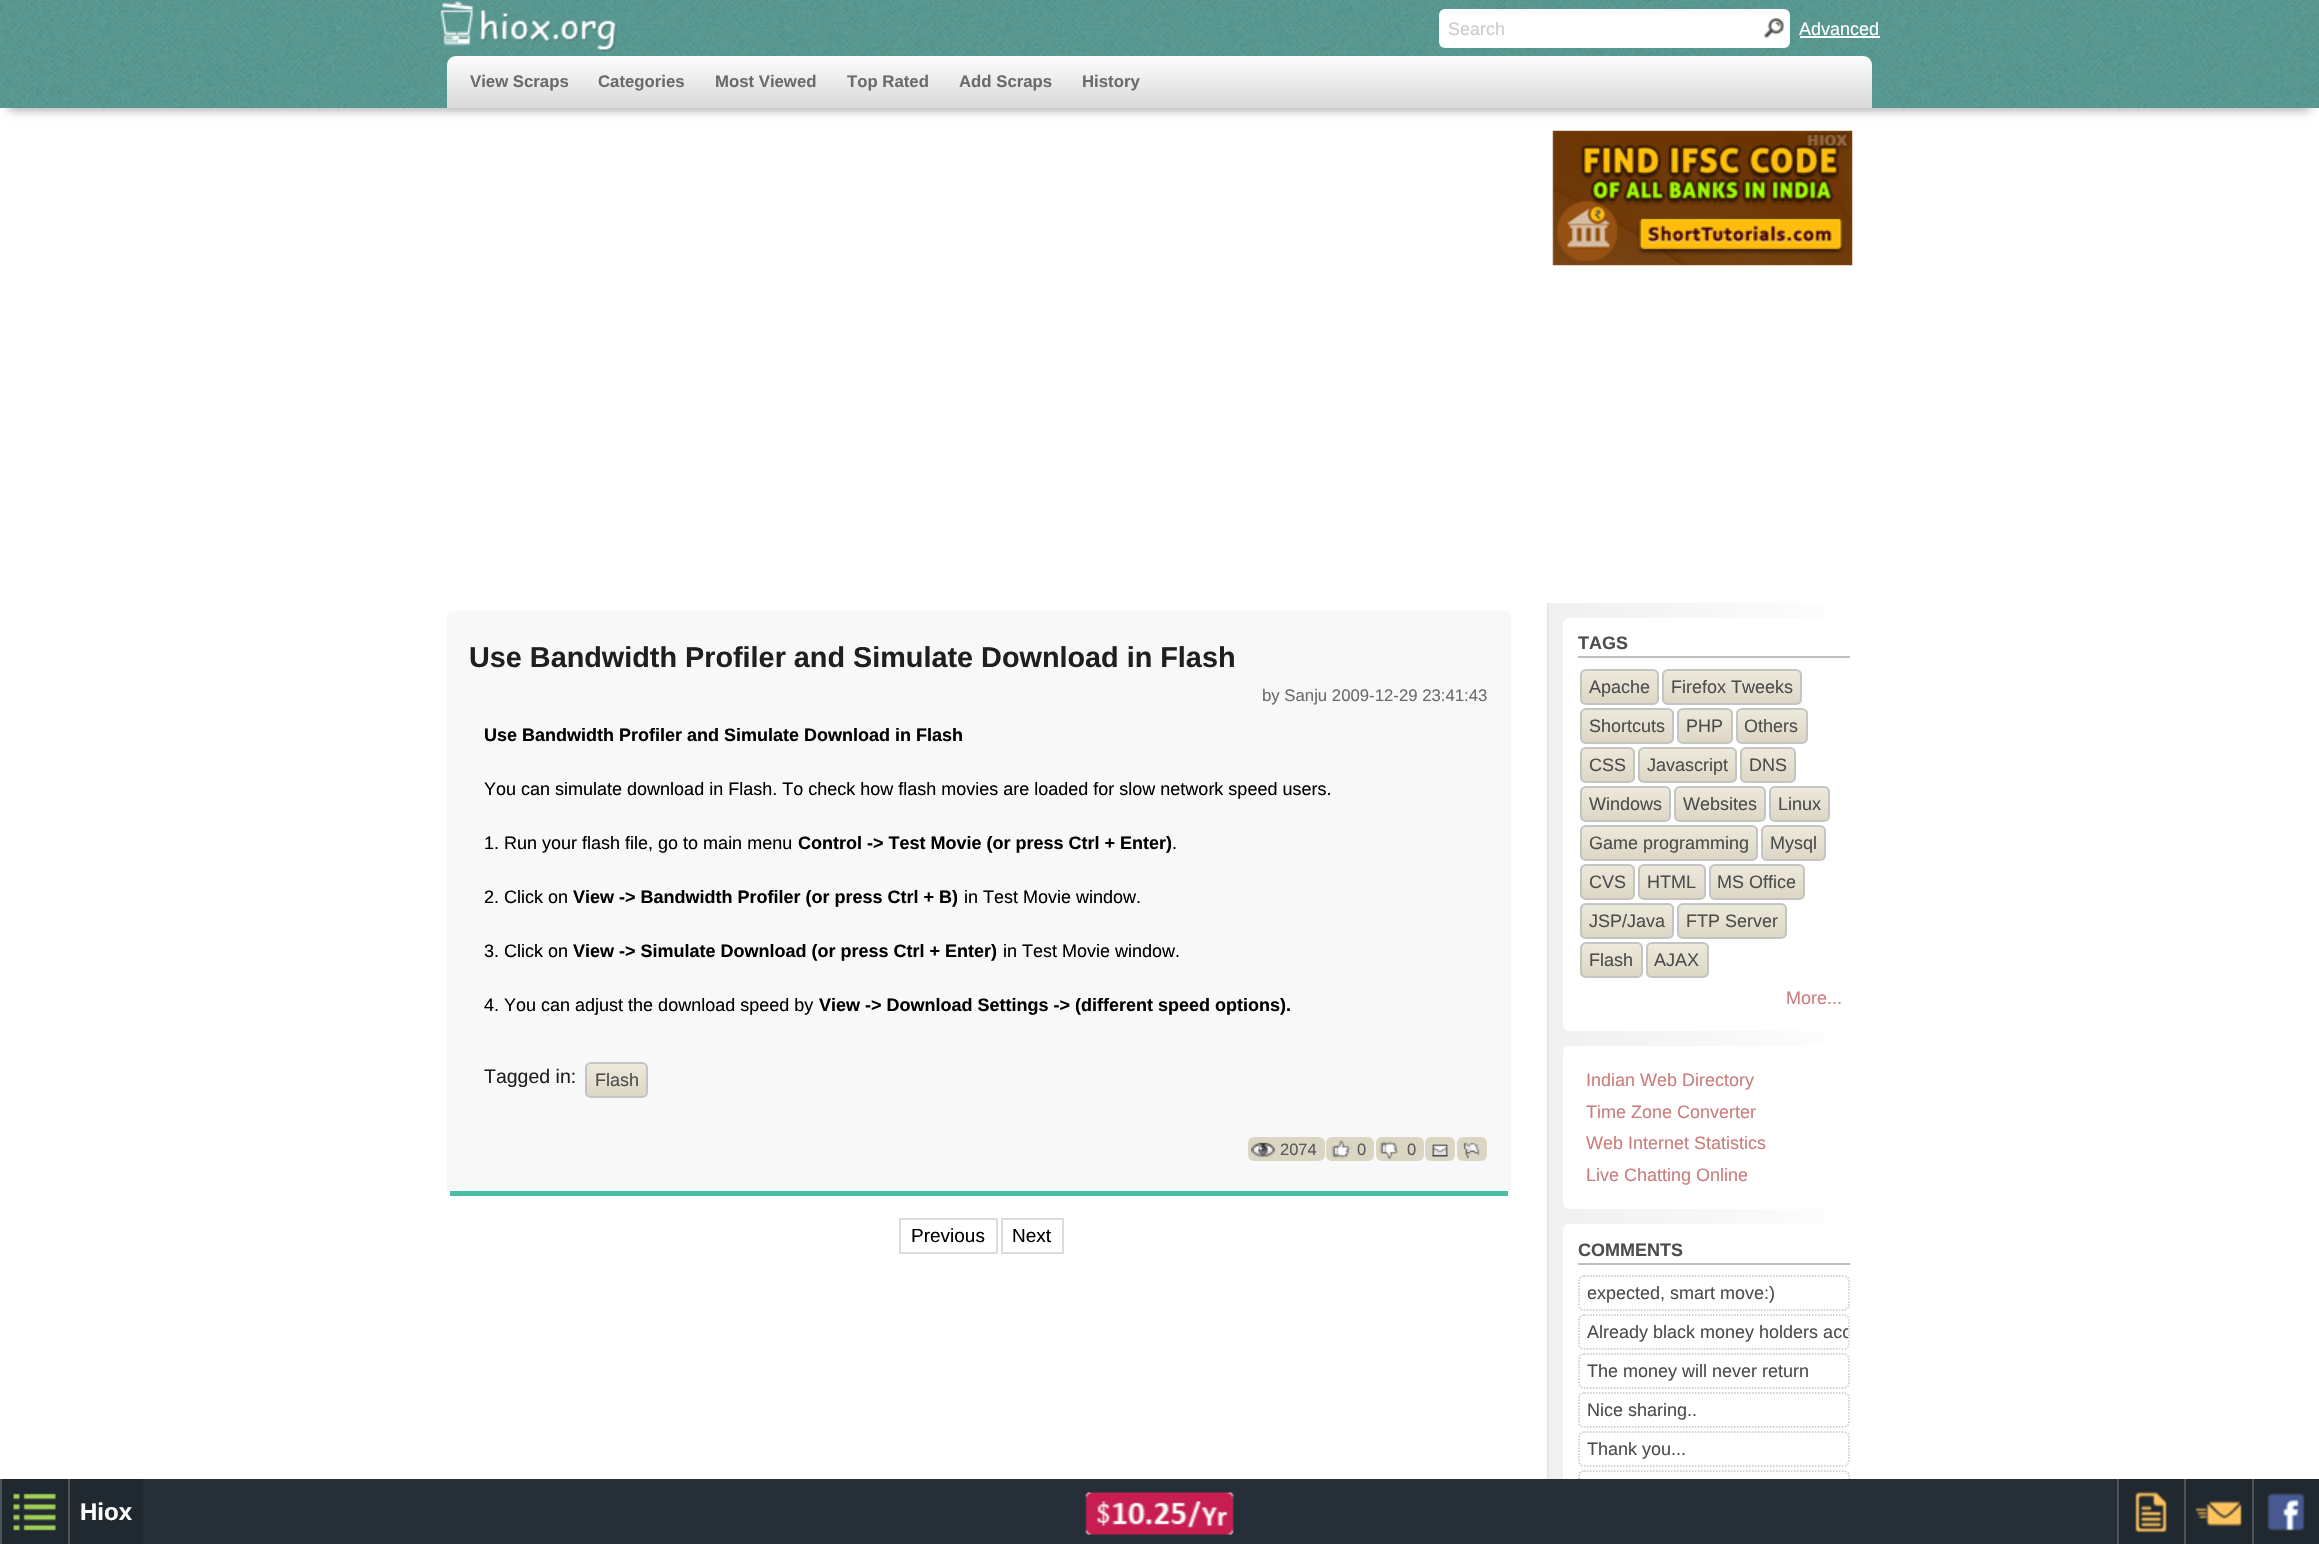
void draw(SkCanvas* canvas) {
	SkPaint paint;
	paint.setAntiAlias(true);
	auto svgPath = [&](const char* data, bool evenOdd = false) {
		SkPath result = *SkParsePath::FromSVGString(data);
		if (evenOdd) result.setFillType(SkPathFillType::kEvenOdd);
		return result;
	};
	canvas->clear(0xffffffff);
	paint.setColor(0xffb4b4b4);
	paint.setMaskFilter(SkMaskFilter::MakeBlur(kNormal_SkBlurStyle, 4.5));
	canvas->drawRect(SkRect::MakeXYWH(9, 21, 2301, 90), paint);
	paint.setMaskFilter(nullptr);
	canvas->drawImageRect(SkImages::DeferredFromEncodedData(SkData::MakeFromFileName("img1.png")), SkRect::MakeXYWH(0, 0, 2319, 108), SkSamplingOptions());
	canvas->drawImageRect(SkImages::DeferredFromEncodedData(SkData::MakeFromFileName("img2.png")), SkRect::MakeXYWH(440, 1, 177, 51), SkSamplingOptions());
	paint.setColor(0xffffffff);
	canvas->drawRoundRect(SkRect::MakeXYWH(1439, 9, 351, 39), 6, 6, paint);
	SkFont f1(fontMgr->matchFamilyStyle("Liberation Sans", SkFontStyle::Normal()), 18);
	f1.setSubpixel(true);
	paint.setColor(0xffcccccc);
	canvas->drawString("Search", 1448, 35, f1, paint);
	canvas->drawImageRect(SkImages::DeferredFromEncodedData(SkData::MakeFromFileName("img3.png")), SkRect::MakeXYWH(1763, 18, 21, 20), SkSamplingOptions());
	paint.setColor(0xffffffff);
	canvas->drawString("Advanced", 1799, 35, f1, paint);
	canvas->drawRect(SkRect::MakeXYWH(1800, 36, 80, 2), paint);
	{
		const SkColor colors[] = {0xfffefefe, 0xffd9d9d9};
		const float stops[] = {0, 1};
		const SkPoint ends[] = {{1160, 55}, {1160, 108}};
		paint.setShader(SkGradientShader::MakeLinear(ends, colors, stops, 2, SkTileMode::kClamp));
		paint.setAlpha(255);
	}
	canvas->drawPath(svgPath("M456 56H1863C1868 56 1872 60 1872 65V108H447V65C447 60 451 56 456 56Z"), paint);
	SkFont f2(fontMgr->matchFamilyStyle("Liberation Sans", SkFontStyle::Bold()), 16.75);
	f2.setSubpixel(true);
	paint.setShader(nullptr);
	paint.setColor(0xff6b6b6b);
	canvas->drawString("View Scraps", 470, 87, f2, paint);
	canvas->drawString("Categories", 598, 87, f2, paint);
	canvas->drawString("Most Viewed", 715, 87, f2, paint);
	canvas->drawString("Top Rated", 847, 87, f2, paint);
	canvas->drawString("Add Scraps", 959, 87, f2, paint);
	canvas->drawString("History", 1082, 87, f2, paint);
	canvas->drawImageRect(SkImages::DeferredFromEncodedData(SkData::MakeFromFileName("img4.png")), SkRect::MakeXYWH(1552, 130, 301, 136), SkSamplingOptions());
	paint.setColor(0xfff8f8f8);
	canvas->drawRoundRect(SkRect::MakeXYWH(447, 611, 1064, 585), 6, 6, paint);
	paint.setColor(0xff4abea4);
	canvas->drawRect(SkRect::MakeXYWH(450, 1191, 1058, 5), paint);
	SkFont f3(fontMgr->matchFamilyStyle("Liberation Sans", SkFontStyle::Bold()), 28.8);
	f3.setSubpixel(true);
	paint.setColor(0xff1f1f1f);
	canvas->drawString("Use Bandwidth Profiler and Simulate Download in Flash", 469, 667, f3, paint);
	SkFont f4(fontMgr->matchFamilyStyle("Liberation Sans", SkFontStyle::Normal()), 16.75);
	f4.setSubpixel(true);
	paint.setColor(0xff6b6b6b);
	canvas->drawString("by Sanju 2009-12-29 23:41:43", 1262, 701, f4, paint);
	SkFont f5(fontMgr->matchFamilyStyle("Liberation Sans", SkFontStyle::Bold()), 18);
	f5.setSubpixel(true);
	paint.setColor(0xff000000);
	canvas->drawString("Use Bandwidth Profiler and Simulate Download in Flash", 484, 741, f5, paint);
	canvas->drawString("You can simulate download in Flash. To check how flash movies are loaded for slow network speed users.", 484, 795, f1, paint);
	canvas->drawString("1. Run your flash file, go to main menu", 484, 849, f1, paint);
	canvas->drawString("Control -> Test Movie (or press Ctrl + Enter)", 798, 849, f5, paint);
	canvas->drawString(".", 1172, 849, f1, paint);
	canvas->drawString("2. Click on", 484, 903, f1, paint);
	canvas->drawString("View -> Bandwidth Profiler (or press Ctrl + B)", 573, 903, f5, paint);
	canvas->drawString("in Test Movie window.", 964, 903, f1, paint);
	canvas->drawString("3. Click on", 484, 957, f1, paint);
	canvas->drawString("View -> Simulate Download (or press Ctrl + Enter)", 573, 957, f5, paint);
	canvas->drawString("in Test Movie window.", 1003, 957, f1, paint);
	canvas->drawString("View -> Download Settings -> (different speed options).", 819, 1011, f5, paint);
	SkFont f6(fontMgr->matchFamilyStyle("Liberation Sans", SkFontStyle::Normal()), 19.5);
	f6.setSubpixel(true);
	paint.setColor(0xff1f1f1f);
	canvas->drawString("Tagged in:", 484, 1083, f6, paint);
	canvas->save();
	canvas->clipPath(svgPath("M591 1062H642C645.5 1062 648 1064.5 648 1068V1092C648 1095.5 645.5 1098 642 1098H591C587.5 1098 585 1095.5 585 1092V1068C585 1064.5 587.5 1062 591 1062Z"), true);
	{
		const SkColor colors[] = {0xffede9db, 0xffdcd6c4};
		const float stops[] = {0, 1};
		const SkPoint ends[] = {{617, 1064}, {617, 1097}};
		paint.setShader(SkGradientShader::MakeLinear(ends, colors, stops, 2, SkTileMode::kClamp));
		paint.setAlpha(255);
	}
	canvas->drawRect(SkRect::MakeXYWH(585, 1064, 63, 33), paint);
	canvas->restore();
	paint.setStroke(true);
	paint.setStrokeWidth(2);
	paint.setShader(nullptr);
	paint.setColor(0xffc4c4c4);
	canvas->drawRoundRect(SkRect::MakeXYWH(586, 1063, 61, 34), 5, 5, paint);
	paint.setStroke(false);
	paint.setColor(0xff4d4d4d);
	canvas->drawString("Flash", 595, 1086, f1, paint);
	paint.setColor(0xff000000);
	canvas->drawString("4. You can adjust the download speed by", 484, 1011, f1, paint);
	paint.setColor(0xffdbd5c3);
	canvas->drawRoundRect(SkRect::MakeXYWH(1248, 1137, 77, 24), 6, 6, paint);
	canvas->drawImageRect(SkImages::DeferredFromEncodedData(SkData::MakeFromFileName("img5.png")), SkRect::MakeXYWH(1251, 1142, 24, 15), SkSamplingOptions());
	SkFont f7(fontMgr->matchFamilyStyle("Liberation Sans", SkFontStyle::Normal()), 16.5);
	f7.setSubpixel(true);
	paint.setColor(0xff595959);
	canvas->drawString("2074", 1280, 1155, f7, paint);
	paint.setColor(0xffdbd5c3);
	canvas->drawRoundRect(SkRect::MakeXYWH(1326, 1137, 48, 24), 6, 6, paint);
	canvas->drawImageRect(SkImages::DeferredFromEncodedData(SkData::MakeFromFileName("img6.png")), SkRect::MakeXYWH(1331, 1140, 20, 19), SkSamplingOptions());
	paint.setColor(0xff595959);
	canvas->drawString("0", 1357, 1155, f7, paint);
	paint.setColor(0xffdbd5c3);
	canvas->drawRoundRect(SkRect::MakeXYWH(1376, 1137, 48, 24), 6, 6, paint);
	canvas->drawImageRect(SkImages::DeferredFromEncodedData(SkData::MakeFromFileName("img7.png")), SkRect::MakeXYWH(1379, 1141, 20, 19), SkSamplingOptions());
	paint.setColor(0xff595959);
	canvas->drawString("0", 1407, 1155, f7, paint);
	paint.setColor(0xffdbd5c3);
	canvas->drawRoundRect(SkRect::MakeXYWH(1425, 1137, 30, 24), 6, 6, paint);
	canvas->drawImageRect(SkImages::DeferredFromEncodedData(SkData::MakeFromFileName("img8.png")), SkRect::MakeXYWH(1432, 1144, 16, 13), SkSamplingOptions());
	canvas->drawRoundRect(SkRect::MakeXYWH(1457, 1137, 30, 24), 6, 6, paint);
	canvas->drawImageRect(SkImages::DeferredFromEncodedData(SkData::MakeFromFileName("img9.png")), SkRect::MakeXYWH(1463, 1142, 17, 17), SkSamplingOptions());
	paint.setStroke(true);
	paint.setColor(0xffdcdcdc);
	canvas->drawRect(SkRect::MakeXYWH(900, 1219, 97, 34), paint);
	SkFont f8(fontMgr->matchFamilyStyle("Liberation Sans", SkFontStyle::Normal()), 19);
	f8.setSubpixel(true);
	paint.setStroke(false);
	paint.setColor(0xff000000);
	canvas->drawString("Previous", 911, 1242, f8, paint);
	paint.setStroke(true);
	paint.setColor(0xffdcdcdc);
	canvas->drawRect(SkRect::MakeXYWH(1002, 1219, 61, 34), paint);
	paint.setStroke(false);
	paint.setColor(0xff000000);
	canvas->drawString("Next", 1012, 1242, f8, paint);
	{
		const SkColor colors[] = {0xfff0f0f0, 0xffffffff};
		const float stops[] = {0, 1};
		const SkPoint ends[] = {{1548, 1149}, {1880, 1149}};
		paint.setShader(SkGradientShader::MakeLinear(ends, colors, stops, 2, SkTileMode::kClamp));
		paint.setAlpha(255);
	}
	canvas->drawRect(SkRect::MakeXYWH(1549, 603, 276, 876), paint);
	paint.setShader(nullptr);
	paint.setColor(0xffe6e6e6);
	canvas->drawRect(SkRect::MakeXYWH(1547, 603, 2, 876), paint);
	paint.setColor(0xffffffff);
	canvas->drawRoundRect(SkRect::MakeXYWH(1563, 618, 302, 413), 6, 6, paint);
	paint.setColor(0xffbfbfbf);
	canvas->drawRect(SkRect::MakeXYWH(1578, 656, 272, 2), paint);
	paint.setColor(0xff4d4d4d);
	canvas->drawString("TAGS", 1578, 649, f5, paint);
	canvas->save();
	canvas->clipPath(svgPath("M1586 669H1653C1656.5 669 1659 671.5 1659 675V699C1659 702.5 1656.5 705 1653 705H1586C1582.5 705 1580 702.5 1580 699V675C1580 671.5 1582.5 669 1586 669Z"), true);
	{
		const SkColor colors[] = {0xffede9db, 0xffdcd6c4};
		const float stops[] = {0, 1};
		const SkPoint ends[] = {{1619, 671}, {1619, 704}};
		paint.setShader(SkGradientShader::MakeLinear(ends, colors, stops, 2, SkTileMode::kClamp));
		paint.setAlpha(255);
	}
	canvas->drawRect(SkRect::MakeXYWH(1580, 671, 79, 33), paint);
	canvas->restore();
	paint.setStroke(true);
	paint.setShader(nullptr);
	paint.setColor(0xffc4c4c4);
	canvas->drawRoundRect(SkRect::MakeXYWH(1581, 670, 77, 34), 5, 5, paint);
	paint.setStroke(false);
	paint.setColor(0xff4d4d4d);
	canvas->drawString("Apache", 1589, 693, f1, paint);
	canvas->save();
	canvas->clipPath(svgPath("M1668 669H1796C1799.5 669 1802 671.5 1802 675V699C1802 702.5 1799.5 705 1796 705H1668C1664.5 705 1662 702.5 1662 699V675C1662 671.5 1664.5 669 1668 669Z"), true);
	{
		const SkColor colors[] = {0xffede9db, 0xffdcd6c4};
		const float stops[] = {0, 1};
		const SkPoint ends[] = {{1732, 671}, {1732, 704}};
		paint.setShader(SkGradientShader::MakeLinear(ends, colors, stops, 2, SkTileMode::kClamp));
		paint.setAlpha(255);
	}
	canvas->drawRect(SkRect::MakeXYWH(1662, 671, 140, 33), paint);
	canvas->restore();
	paint.setStroke(true);
	paint.setShader(nullptr);
	paint.setColor(0xffc4c4c4);
	canvas->drawRoundRect(SkRect::MakeXYWH(1663, 670, 138, 34), 5, 5, paint);
	paint.setStroke(false);
	paint.setColor(0xff4d4d4d);
	canvas->drawString("Firefox Tweeks", 1671, 693, f1, paint);
	canvas->save();
	canvas->clipPath(svgPath("M1586 708H1668C1671.5 708 1674 710.5 1674 714V738C1674 741.5 1671.5 744 1668 744H1586C1582.5 744 1580 741.5 1580 738V714C1580 710.5 1582.5 708 1586 708Z"), true);
	{
		const SkColor colors[] = {0xffede9db, 0xffdcd6c4};
		const float stops[] = {0, 1};
		const SkPoint ends[] = {{1627, 710}, {1627, 743}};
		paint.setShader(SkGradientShader::MakeLinear(ends, colors, stops, 2, SkTileMode::kClamp));
		paint.setAlpha(255);
	}
	canvas->drawRect(SkRect::MakeXYWH(1580, 710, 94, 33), paint);
	canvas->restore();
	paint.setStroke(true);
	paint.setShader(nullptr);
	paint.setColor(0xffc4c4c4);
	canvas->drawRoundRect(SkRect::MakeXYWH(1581, 709, 92, 34), 5, 5, paint);
	paint.setStroke(false);
	paint.setColor(0xff4d4d4d);
	canvas->drawString("Shortcuts", 1589, 732, f1, paint);
	canvas->save();
	canvas->clipPath(svgPath("M1683 708H1727C1730.5 708 1733 710.5 1733 714V738C1733 741.5 1730.5 744 1727 744H1683C1679.5 744 1677 741.5 1677 738V714C1677 710.5 1679.5 708 1683 708Z"), true);
	{
		const SkColor colors[] = {0xffede9db, 0xffdcd6c4};
		const float stops[] = {0, 1};
		const SkPoint ends[] = {{1705, 710}, {1705, 743}};
		paint.setShader(SkGradientShader::MakeLinear(ends, colors, stops, 2, SkTileMode::kClamp));
		paint.setAlpha(255);
	}
	canvas->drawRect(SkRect::MakeXYWH(1677, 710, 56, 33), paint);
	canvas->restore();
	paint.setStroke(true);
	paint.setShader(nullptr);
	paint.setColor(0xffc4c4c4);
	canvas->drawRoundRect(SkRect::MakeXYWH(1678, 709, 54, 34), 5, 5, paint);
	paint.setStroke(false);
	paint.setColor(0xff4d4d4d);
	canvas->drawString("PHP", 1686, 732, f1, paint);
	canvas->save();
	canvas->clipPath(svgPath("M1742 708H1802C1805.5 708 1808 710.5 1808 714V738C1808 741.5 1805.5 744 1802 744H1742C1738.5 744 1736 741.5 1736 738V714C1736 710.5 1738.5 708 1742 708Z"), true);
	{
		const SkColor colors[] = {0xffede9db, 0xffdcd6c4};
		const float stops[] = {0, 1};
		const SkPoint ends[] = {{1772, 710}, {1772, 743}};
		paint.setShader(SkGradientShader::MakeLinear(ends, colors, stops, 2, SkTileMode::kClamp));
		paint.setAlpha(255);
	}
	canvas->drawRect(SkRect::MakeXYWH(1736, 710, 72, 33), paint);
	canvas->restore();
	paint.setStroke(true);
	paint.setShader(nullptr);
	paint.setColor(0xffc4c4c4);
	canvas->drawRoundRect(SkRect::MakeXYWH(1737, 709, 70, 34), 5, 5, paint);
	paint.setStroke(false);
	paint.setColor(0xff4d4d4d);
	canvas->drawString("Others", 1744, 732, f1, paint);
	canvas->save();
	canvas->clipPath(svgPath("M1586 747H1629C1632.5 747 1635 749.5 1635 753V777C1635 780.5 1632.5 783 1629 783H1586C1582.5 783 1580 780.5 1580 777V753C1580 749.5 1582.5 747 1586 747Z"), true);
	{
		const SkColor colors[] = {0xffede9db, 0xffdcd6c4};
		const float stops[] = {0, 1};
		const SkPoint ends[] = {{1607, 749}, {1607, 782}};
		paint.setShader(SkGradientShader::MakeLinear(ends, colors, stops, 2, SkTileMode::kClamp));
		paint.setAlpha(255);
	}
	canvas->drawRect(SkRect::MakeXYWH(1580, 749, 55, 33), paint);
	canvas->restore();
	paint.setStroke(true);
	paint.setShader(nullptr);
	paint.setColor(0xffc4c4c4);
	canvas->drawRoundRect(SkRect::MakeXYWH(1581, 748, 53, 34), 5, 5, paint);
	paint.setStroke(false);
	paint.setColor(0xff4d4d4d);
	canvas->drawString("CSS", 1589, 771, f1, paint);
	canvas->save();
	canvas->clipPath(svgPath("M1644 747H1731C1734.5 747 1737 749.5 1737 753V777C1737 780.5 1734.5 783 1731 783H1644C1640.5 783 1638 780.5 1638 777V753C1638 749.5 1640.5 747 1644 747Z"), true);
	{
		const SkColor colors[] = {0xffede9db, 0xffdcd6c4};
		const float stops[] = {0, 1};
		const SkPoint ends[] = {{1688, 749}, {1688, 782}};
		paint.setShader(SkGradientShader::MakeLinear(ends, colors, stops, 2, SkTileMode::kClamp));
		paint.setAlpha(255);
	}
	canvas->drawRect(SkRect::MakeXYWH(1638, 749, 99, 33), paint);
	canvas->restore();
	paint.setStroke(true);
	paint.setShader(nullptr);
	paint.setColor(0xffc4c4c4);
	canvas->drawRoundRect(SkRect::MakeXYWH(1639, 748, 97, 34), 5, 5, paint);
	paint.setStroke(false);
	paint.setColor(0xff4d4d4d);
	canvas->drawString("Javascript", 1647, 771, f1, paint);
	canvas->save();
	canvas->clipPath(svgPath("M1746 747H1790C1793.5 747 1796 749.5 1796 753V777C1796 780.5 1793.5 783 1790 783H1746C1742.5 783 1740 780.5 1740 777V753C1740 749.5 1742.5 747 1746 747Z"), true);
	{
		const SkColor colors[] = {0xffede9db, 0xffdcd6c4};
		const float stops[] = {0, 1};
		const SkPoint ends[] = {{1768, 749}, {1768, 782}};
		paint.setShader(SkGradientShader::MakeLinear(ends, colors, stops, 2, SkTileMode::kClamp));
		paint.setAlpha(255);
	}
	canvas->drawRect(SkRect::MakeXYWH(1740, 749, 56, 33), paint);
	canvas->restore();
	paint.setStroke(true);
	paint.setShader(nullptr);
	paint.setColor(0xffc4c4c4);
	canvas->drawRoundRect(SkRect::MakeXYWH(1741, 748, 54, 34), 5, 5, paint);
	paint.setStroke(false);
	paint.setColor(0xff4d4d4d);
	canvas->drawString("DNS", 1749, 771, f1, paint);
	canvas->save();
	canvas->clipPath(svgPath("M1586 786H1665C1668.5 786 1671 788.5 1671 792V816C1671 819.5 1668.5 822 1665 822H1586C1582.5 822 1580 819.5 1580 816V792C1580 788.5 1582.5 786 1586 786Z"), true);
	{
		const SkColor colors[] = {0xffede9db, 0xffdcd6c4};
		const float stops[] = {0, 1};
		const SkPoint ends[] = {{1625, 788}, {1625, 821}};
		paint.setShader(SkGradientShader::MakeLinear(ends, colors, stops, 2, SkTileMode::kClamp));
		paint.setAlpha(255);
	}
	canvas->drawRect(SkRect::MakeXYWH(1580, 788, 91, 33), paint);
	canvas->restore();
	paint.setStroke(true);
	paint.setShader(nullptr);
	paint.setColor(0xffc4c4c4);
	canvas->drawRoundRect(SkRect::MakeXYWH(1581, 787, 89, 34), 5, 5, paint);
	paint.setStroke(false);
	paint.setColor(0xff4d4d4d);
	canvas->drawString("Windows", 1589, 810, f1, paint);
	canvas->save();
	canvas->clipPath(svgPath("M1680 786H1760C1763.5 786 1766 788.5 1766 792V816C1766 819.5 1763.5 822 1760 822H1680C1676.5 822 1674 819.5 1674 816V792C1674 788.5 1676.5 786 1680 786Z"), true);
	{
		const SkColor colors[] = {0xffede9db, 0xffdcd6c4};
		const float stops[] = {0, 1};
		const SkPoint ends[] = {{1720, 788}, {1720, 821}};
		paint.setShader(SkGradientShader::MakeLinear(ends, colors, stops, 2, SkTileMode::kClamp));
		paint.setAlpha(255);
	}
	canvas->drawRect(SkRect::MakeXYWH(1674, 788, 92, 33), paint);
	canvas->restore();
	paint.setStroke(true);
	paint.setShader(nullptr);
	paint.setColor(0xffc4c4c4);
	canvas->drawRoundRect(SkRect::MakeXYWH(1675, 787, 90, 34), 5, 5, paint);
	paint.setStroke(false);
	paint.setColor(0xff4d4d4d);
	canvas->drawString("Websites", 1683, 810, f1, paint);
	canvas->save();
	canvas->clipPath(svgPath("M1775 786H1824C1827.5 786 1830 788.5 1830 792V816C1830 819.5 1827.5 822 1824 822H1775C1771.5 822 1769 819.5 1769 816V792C1769 788.5 1771.5 786 1775 786Z"), true);
	{
		const SkColor colors[] = {0xffede9db, 0xffdcd6c4};
		const float stops[] = {0, 1};
		const SkPoint ends[] = {{1799, 788}, {1799, 821}};
		paint.setShader(SkGradientShader::MakeLinear(ends, colors, stops, 2, SkTileMode::kClamp));
		paint.setAlpha(255);
	}
	canvas->drawRect(SkRect::MakeXYWH(1769, 788, 61, 33), paint);
	canvas->restore();
	paint.setStroke(true);
	paint.setShader(nullptr);
	paint.setColor(0xffc4c4c4);
	canvas->drawRoundRect(SkRect::MakeXYWH(1770, 787, 59, 34), 5, 5, paint);
	paint.setStroke(false);
	paint.setColor(0xff4d4d4d);
	canvas->drawString("Linux", 1778, 810, f1, paint);
	canvas->save();
	canvas->clipPath(svgPath("M1586 825H1752C1755.5 825 1758 827.5 1758 831V855C1758 858.5 1755.5 861 1752 861H1586C1582.5 861 1580 858.5 1580 855V831C1580 827.5 1582.5 825 1586 825Z"), true);
	{
		const SkColor colors[] = {0xffede9db, 0xffdcd6c4};
		const float stops[] = {0, 1};
		const SkPoint ends[] = {{1669, 827}, {1669, 860}};
		paint.setShader(SkGradientShader::MakeLinear(ends, colors, stops, 2, SkTileMode::kClamp));
		paint.setAlpha(255);
	}
	canvas->drawRect(SkRect::MakeXYWH(1580, 827, 178, 33), paint);
	canvas->restore();
	paint.setStroke(true);
	paint.setShader(nullptr);
	paint.setColor(0xffc4c4c4);
	canvas->drawRoundRect(SkRect::MakeXYWH(1581, 826, 176, 34), 5, 5, paint);
	paint.setStroke(false);
	paint.setColor(0xff4d4d4d);
	canvas->drawString("Game programming", 1589, 849, f1, paint);
	canvas->save();
	canvas->clipPath(svgPath("M1767 825H1820C1823.5 825 1826 827.5 1826 831V855C1826 858.5 1823.5 861 1820 861H1767C1763.5 861 1761 858.5 1761 855V831C1761 827.5 1763.5 825 1767 825Z"), true);
	{
		const SkColor colors[] = {0xffede9db, 0xffdcd6c4};
		const float stops[] = {0, 1};
		const SkPoint ends[] = {{1793, 827}, {1793, 860}};
		paint.setShader(SkGradientShader::MakeLinear(ends, colors, stops, 2, SkTileMode::kClamp));
		paint.setAlpha(255);
	}
	canvas->drawRect(SkRect::MakeXYWH(1761, 827, 65, 33), paint);
	canvas->restore();
	paint.setStroke(true);
	paint.setShader(nullptr);
	paint.setColor(0xffc4c4c4);
	canvas->drawRoundRect(SkRect::MakeXYWH(1762, 826, 63, 34), 5, 5, paint);
	paint.setStroke(false);
	paint.setColor(0xff4d4d4d);
	canvas->drawString("Mysql", 1770, 849, f1, paint);
	canvas->save();
	canvas->clipPath(svgPath("M1586 864H1629C1632.5 864 1635 866.5 1635 870V894C1635 897.5 1632.5 900 1629 900H1586C1582.5 900 1580 897.5 1580 894V870C1580 866.5 1582.5 864 1586 864Z"), true);
	{
		const SkColor colors[] = {0xffede9db, 0xffdcd6c4};
		const float stops[] = {0, 1};
		const SkPoint ends[] = {{1607, 866}, {1607, 899}};
		paint.setShader(SkGradientShader::MakeLinear(ends, colors, stops, 2, SkTileMode::kClamp));
		paint.setAlpha(255);
	}
	canvas->drawRect(SkRect::MakeXYWH(1580, 866, 55, 33), paint);
	canvas->restore();
	paint.setStroke(true);
	paint.setShader(nullptr);
	paint.setColor(0xffc4c4c4);
	canvas->drawRoundRect(SkRect::MakeXYWH(1581, 865, 53, 34), 5, 5, paint);
	paint.setStroke(false);
	paint.setColor(0xff4d4d4d);
	canvas->drawString("CVS", 1589, 888, f1, paint);
	canvas->save();
	canvas->clipPath(svgPath("M1644 864H1700C1703.5 864 1706 866.5 1706 870V894C1706 897.5 1703.5 900 1700 900H1644C1640.5 900 1638 897.5 1638 894V870C1638 866.5 1640.5 864 1644 864Z"), true);
	{
		const SkColor colors[] = {0xffede9db, 0xffdcd6c4};
		const float stops[] = {0, 1};
		const SkPoint ends[] = {{1672, 866}, {1672, 899}};
		paint.setShader(SkGradientShader::MakeLinear(ends, colors, stops, 2, SkTileMode::kClamp));
		paint.setAlpha(255);
	}
	canvas->drawRect(SkRect::MakeXYWH(1638, 866, 68, 33), paint);
	canvas->restore();
	paint.setStroke(true);
	paint.setShader(nullptr);
	paint.setColor(0xffc4c4c4);
	canvas->drawRoundRect(SkRect::MakeXYWH(1639, 865, 66, 34), 5, 5, paint);
	paint.setStroke(false);
	paint.setColor(0xff4d4d4d);
	canvas->drawString("HTML", 1647, 888, f1, paint);
	canvas->save();
	canvas->clipPath(svgPath("M1715 864H1799C1802.5 864 1805 866.5 1805 870V894C1805 897.5 1802.5 900 1799 900H1715C1711.5 900 1709 897.5 1709 894V870C1709 866.5 1711.5 864 1715 864Z"), true);
	{
		const SkColor colors[] = {0xffede9db, 0xffdcd6c4};
		const float stops[] = {0, 1};
		const SkPoint ends[] = {{1757, 866}, {1757, 899}};
		paint.setShader(SkGradientShader::MakeLinear(ends, colors, stops, 2, SkTileMode::kClamp));
		paint.setAlpha(255);
	}
	canvas->drawRect(SkRect::MakeXYWH(1709, 866, 96, 33), paint);
	canvas->restore();
	paint.setStroke(true);
	paint.setShader(nullptr);
	paint.setColor(0xffc4c4c4);
	canvas->drawRoundRect(SkRect::MakeXYWH(1710, 865, 94, 34), 5, 5, paint);
	paint.setStroke(false);
	paint.setColor(0xff4d4d4d);
	canvas->drawString("MS Office", 1717, 888, f1, paint);
	canvas->save();
	canvas->clipPath(svgPath("M1586 903H1668C1671.5 903 1674 905.5 1674 909V933C1674 936.5 1671.5 939 1668 939H1586C1582.5 939 1580 936.5 1580 933V909C1580 905.5 1582.5 903 1586 903Z"), true);
	{
		const SkColor colors[] = {0xffede9db, 0xffdcd6c4};
		const float stops[] = {0, 1};
		const SkPoint ends[] = {{1627, 905}, {1627, 938}};
		paint.setShader(SkGradientShader::MakeLinear(ends, colors, stops, 2, SkTileMode::kClamp));
		paint.setAlpha(255);
	}
	canvas->drawRect(SkRect::MakeXYWH(1580, 905, 94, 33), paint);
	canvas->restore();
	paint.setStroke(true);
	paint.setShader(nullptr);
	paint.setColor(0xffc4c4c4);
	canvas->drawRoundRect(SkRect::MakeXYWH(1581, 904, 92, 34), 5, 5, paint);
	paint.setStroke(false);
	paint.setColor(0xff4d4d4d);
	canvas->drawString("JSP/Java", 1589, 927, f1, paint);
	canvas->save();
	canvas->clipPath(svgPath("M1683 903H1781C1784.5 903 1787 905.5 1787 909V933C1787 936.5 1784.5 939 1781 939H1683C1679.5 939 1677 936.5 1677 933V909C1677 905.5 1679.5 903 1683 903Z"), true);
	{
		const SkColor colors[] = {0xffede9db, 0xffdcd6c4};
		const float stops[] = {0, 1};
		const SkPoint ends[] = {{1732, 905}, {1732, 938}};
		paint.setShader(SkGradientShader::MakeLinear(ends, colors, stops, 2, SkTileMode::kClamp));
		paint.setAlpha(255);
	}
	canvas->drawRect(SkRect::MakeXYWH(1677, 905, 110, 33), paint);
	canvas->restore();
	paint.setStroke(true);
	paint.setShader(nullptr);
	paint.setColor(0xffc4c4c4);
	canvas->drawRoundRect(SkRect::MakeXYWH(1678, 904, 108, 34), 5, 5, paint);
	paint.setStroke(false);
	paint.setColor(0xff4d4d4d);
	canvas->drawString("FTP Server", 1686, 927, f1, paint);
	canvas->save();
	canvas->clipPath(svgPath("M1586 942H1637C1640.5 942 1643 944.5 1643 948V972C1643 975.5 1640.5 978 1637 978H1586C1582.5 978 1580 975.5 1580 972V948C1580 944.5 1582.5 942 1586 942Z"), true);
	{
		const SkColor colors[] = {0xffede9db, 0xffdcd6c4};
		const float stops[] = {0, 1};
		const SkPoint ends[] = {{1611, 944}, {1611, 977}};
		paint.setShader(SkGradientShader::MakeLinear(ends, colors, stops, 2, SkTileMode::kClamp));
		paint.setAlpha(255);
	}
	canvas->drawRect(SkRect::MakeXYWH(1580, 944, 63, 33), paint);
	canvas->restore();
	paint.setStroke(true);
	paint.setShader(nullptr);
	paint.setColor(0xffc4c4c4);
	canvas->drawRoundRect(SkRect::MakeXYWH(1581, 943, 61, 34), 5, 5, paint);
	paint.setStroke(false);
	paint.setColor(0xff4d4d4d);
	canvas->drawString("Flash", 1589, 966, f1, paint);
	canvas->save();
	canvas->clipPath(svgPath("M1652 942H1703C1706.5 942 1709 944.5 1709 948V972C1709 975.5 1706.5 978 1703 978H1652C1648.5 978 1646 975.5 1646 972V948C1646 944.5 1648.5 942 1652 942Z"), true);
	{
		const SkColor colors[] = {0xffede9db, 0xffdcd6c4};
		const float stops[] = {0, 1};
		const SkPoint ends[] = {{1677, 944}, {1677, 977}};
		paint.setShader(SkGradientShader::MakeLinear(ends, colors, stops, 2, SkTileMode::kClamp));
		paint.setAlpha(255);
	}
	canvas->drawRect(SkRect::MakeXYWH(1646, 944, 63, 33), paint);
	canvas->restore();
	paint.setStroke(true);
	paint.setShader(nullptr);
	paint.setColor(0xffc4c4c4);
	canvas->drawRoundRect(SkRect::MakeXYWH(1647, 943, 61, 34), 5, 5, paint);
	paint.setStroke(false);
	paint.setColor(0xff4d4d4d);
	canvas->drawString("AJAX", 1654, 966, f1, paint);
	paint.setColor(0xffcb7d7d);
	canvas->drawString("More...", 1786, 1004, f1, paint);
	paint.setColor(0xffffffff);
	canvas->drawRoundRect(SkRect::MakeXYWH(1563, 1046, 302, 163), 6, 6, paint);
	paint.setColor(0xffcb7d7d);
	canvas->drawString("Indian Web Directory", 1586, 1086, f1, paint);
	canvas->drawString("Time Zone Converter", 1586, 1118, f1, paint);
	canvas->drawString("Web Internet Statistics", 1586, 1149, f1, paint);
	canvas->drawString("Live Chatting Online", 1586, 1181, f1, paint);
	paint.setColor(0xffffffff);
	canvas->drawRoundRect(SkRect::MakeXYWH(1563, 1224, 302, 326), 6, 6, paint);
	paint.setColor(0xffbfbfbf);
	canvas->drawRect(SkRect::MakeXYWH(1578, 1263, 272, 2), paint);
	paint.setColor(0xff4d4d4d);
	canvas->drawString("COMMENTS", 1578, 1256, f5, paint);
	paint.setStroke(true);
	paint.setStrokeWidth(1.5);
	paint.setColor(0xffc4c4c4);
	paint.setPathEffect(SkDashPathEffect::Make({{1.5f, 1.5f}}, 0));
	canvas->drawPath(svgPath("M1584 1276H1843.5C1846.5 1276 1849 1278 1849 1281V1305C1849 1308 1846.5 1310 1843.5 1310H1584C1581 1310 1579 1308 1579 1305V1281C1579 1278 1581 1276 1584 1276Z"), paint);
	paint.setPathEffect(nullptr);
	paint.setStroke(false);
	paint.setColor(0xff4d4d4d);
	canvas->drawString("expected, smart move:)", 1587, 1299, f1, paint);
	paint.setStroke(true);
	paint.setColor(0xffc4c4c4);
	paint.setPathEffect(SkDashPathEffect::Make({{1.5f, 1.5f}}, 0));
	canvas->drawPath(svgPath("M1584 1315H1843.5C1846.5 1315 1849 1317 1849 1320V1344C1849 1347 1846.5 1349 1843.5 1349H1584C1581 1349 1579 1347 1579 1344V1320C1579 1317 1581 1315 1584 1315Z"), paint);
	paint.setPathEffect(nullptr);
	canvas->save();
	canvas->clipPath(svgPath("M1585 1316H1843C1846 1316 1848 1318 1848 1321V1344C1848 1347 1846 1349 1843 1349H1585C1582 1349 1580 1347 1580 1344V1321C1580 1318 1582 1316 1585 1316Z"), true);
	paint.setStroke(false);
	paint.setColor(0xff4d4d4d);
	canvas->drawString("Already black money holders acc", 1587, 1338, f1, paint);
	canvas->restore();
	paint.setStroke(true);
	paint.setColor(0xffc4c4c4);
	paint.setPathEffect(SkDashPathEffect::Make({{1.5f, 1.5f}}, 0));
	canvas->drawPath(svgPath("M1584 1354H1843.5C1846.5 1354 1849 1356 1849 1359V1383C1849 1386 1846.5 1388 1843.5 1388H1584C1581 1388 1579 1386 1579 1383V1359C1579 1356 1581 1354 1584 1354Z"), paint);
	paint.setPathEffect(nullptr);
	paint.setStroke(false);
	paint.setColor(0xff4d4d4d);
	canvas->drawString("The money will never return", 1587, 1377, f1, paint);
	paint.setStroke(true);
	paint.setColor(0xffc4c4c4);
	paint.setPathEffect(SkDashPathEffect::Make({{1.5f, 1.5f}}, 0));
	canvas->drawPath(svgPath("M1584 1393H1843.5C1846.5 1393 1849 1395 1849 1398V1422C1849 1425 1846.5 1427 1843.5 1427H1584C1581 1427 1579 1425 1579 1422V1398C1579 1395 1581 1393 1584 1393Z"), paint);
	paint.setPathEffect(nullptr);
	paint.setStroke(false);
	paint.setColor(0xff4d4d4d);
	canvas->drawString("Nice sharing..", 1587, 1416, f1, paint);
	paint.setStroke(true);
	paint.setColor(0xffc4c4c4);
	paint.setPathEffect(SkDashPathEffect::Make({{1.5f, 1.5f}}, 0));
	canvas->drawPath(svgPath("M1584 1432H1843.5C1846.5 1432 1849 1434 1849 1437V1461C1849 1464 1846.5 1466 1843.5 1466H1584C1581 1466 1579 1464 1579 1461V1437C1579 1434 1581 1432 1584 1432Z"), paint);
	paint.setPathEffect(nullptr);
	paint.setStroke(false);
	paint.setColor(0xff4d4d4d);
	canvas->drawString("Thank you...", 1587, 1455, f1, paint);
	paint.setStroke(true);
	paint.setColor(0xffc4c4c4);
	paint.setPathEffect(SkDashPathEffect::Make({{1.5f, 1.5f}}, 0));
	canvas->drawPath(svgPath("M1584 1471H1843.5C1846.5 1471 1849 1473 1849 1476V1500C1849 1503 1846.5 1505 1843.5 1505H1584C1581 1505 1579 1503 1579 1500V1476C1579 1473 1581 1471 1584 1471Z"), paint);
	paint.setPathEffect(nullptr);
	paint.setStroke(false);
	paint.setColor(0xff262f37);
	canvas->drawRect(SkRect::MakeXYWH(143, 1479, 1974, 65), paint);
	paint.setColor(0xff212930);
	canvas->drawRect(SkRect::MakeXYWH(2, 1479, 66, 65), paint);
	paint.setColor(0xff4d5459);
	canvas->drawRect(SkRect::MakeXYWH(0, 1479, 2, 65), paint);
	canvas->drawImageRect(SkImages::DeferredFromEncodedData(SkData::MakeFromFileName("img10.png")), SkRect::MakeXYWH(13, 1493, 43, 38), SkSamplingOptions());
	paint.setColor(0xff212930);
	canvas->drawRect(SkRect::MakeXYWH(70, 1479, 73, 65), paint);
	paint.setColor(0xff4d5459);
	canvas->drawRect(SkRect::MakeXYWH(68, 1479, 2, 65), paint);
	SkFont f9(fontMgr->matchFamilyStyle("Liberation Sans", SkFontStyle::Bold()), 24);
	f9.setSubpixel(true);
	paint.setColor(0xffffffff);
	canvas->drawString("Hiox", 80, 1520, f9, paint);
	canvas->drawImageRect(SkImages::DeferredFromEncodedData(SkData::MakeFromFileName("img11.png")), SkRect::MakeXYWH(1085, 1492, 149, 43), SkSamplingOptions());
	paint.setColor(0xff212930);
	canvas->drawRect(SkRect::MakeXYWH(2119, 1479, 65, 65), paint);
	paint.setColor(0xff4d5459);
	canvas->drawRect(SkRect::MakeXYWH(2117, 1479, 2, 65), paint);
	canvas->drawImageRect(SkImages::DeferredFromEncodedData(SkData::MakeFromFileName("img12.png")), SkRect::MakeXYWH(2135, 1491, 32, 42), SkSamplingOptions());
	paint.setColor(0xff212930);
	canvas->drawRect(SkRect::MakeXYWH(2186, 1479, 66, 65), paint);
	paint.setColor(0xff4d5459);
	canvas->drawRect(SkRect::MakeXYWH(2184, 1479, 2, 65), paint);
	canvas->drawImageRect(SkImages::DeferredFromEncodedData(SkData::MakeFromFileName("img13.png")), SkRect::MakeXYWH(2195, 1500, 47, 27), SkSamplingOptions());
	paint.setColor(0xff212930);
	canvas->drawRect(SkRect::MakeXYWH(2254, 1479, 65, 65), paint);
	paint.setColor(0xff4d5459);
	canvas->drawRect(SkRect::MakeXYWH(2252, 1479, 2, 65), paint);
	canvas->drawImageRect(SkImages::DeferredFromEncodedData(SkData::MakeFromFileName("img14.png")), SkRect::MakeXYWH(2267, 1493, 38, 38), SkSamplingOptions());
}
